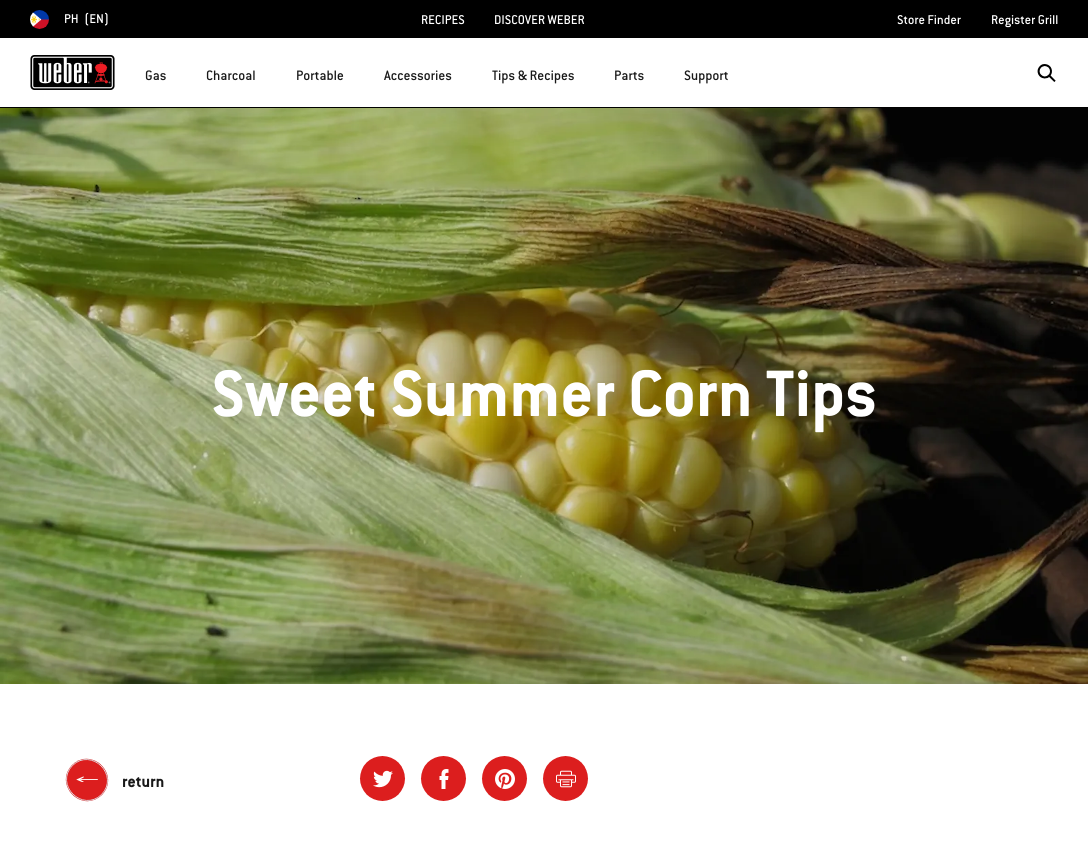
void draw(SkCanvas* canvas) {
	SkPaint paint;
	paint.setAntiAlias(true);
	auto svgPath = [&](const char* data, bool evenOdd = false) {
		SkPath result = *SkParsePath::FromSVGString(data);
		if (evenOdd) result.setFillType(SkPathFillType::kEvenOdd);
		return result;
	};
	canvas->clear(0xffffffff);
	paint.setColor(0xff000000);
	canvas->drawRect(SkRect::MakeXYWH(0, 0, 1088, 38), paint);
	canvas->drawImageRect(SkImages::DeferredFromEncodedData(SkData::MakeFromFileName("img1.png")), SkRect::MakeXYWH(30, 10, 19, 19), SkSamplingOptions());
	canvas->drawImageRect(SkImages::DeferredFromEncodedData(SkData::MakeFromFileName("img2.png")), SkRect::MakeXYWH(65, 14, 13, 9), SkSamplingOptions());
	canvas->drawImageRect(SkImages::DeferredFromEncodedData(SkData::MakeFromFileName("img3.png")), SkRect::MakeXYWH(85, 12, 23, 14), SkSamplingOptions());
	canvas->drawImageRect(SkImages::DeferredFromEncodedData(SkData::MakeFromFileName("img4.png")), SkRect::MakeXYWH(422, 15, 43, 10), SkSamplingOptions());
	canvas->drawImageRect(SkImages::DeferredFromEncodedData(SkData::MakeFromFileName("img5.png")), SkRect::MakeXYWH(495, 15, 90, 10), SkSamplingOptions());
	canvas->drawImageRect(SkImages::DeferredFromEncodedData(SkData::MakeFromFileName("img6.png")), SkRect::MakeXYWH(897, 15, 64, 10), SkSamplingOptions());
	canvas->drawImageRect(SkImages::DeferredFromEncodedData(SkData::MakeFromFileName("img7.png")), SkRect::MakeXYWH(992, 15, 66, 13), SkSamplingOptions());
	canvas->drawRect(SkRect::MakeXYWH(0, 107, 1088, 1), paint);
	canvas->drawImageRect(SkImages::DeferredFromEncodedData(SkData::MakeFromFileName("img8.png")), SkRect::MakeXYWH(30, 55, 85, 35), SkSamplingOptions());
	canvas->drawImageRect(SkImages::DeferredFromEncodedData(SkData::MakeFromFileName("img9.png")), SkRect::MakeXYWH(145, 70, 21, 11), SkSamplingOptions());
	canvas->drawImageRect(SkImages::DeferredFromEncodedData(SkData::MakeFromFileName("img10.png")), SkRect::MakeXYWH(206, 70, 49, 11), SkSamplingOptions());
	canvas->drawImageRect(SkImages::DeferredFromEncodedData(SkData::MakeFromFileName("img11.png")), SkRect::MakeXYWH(297, 70, 47, 11), SkSamplingOptions());
	canvas->drawImageRect(SkImages::DeferredFromEncodedData(SkData::MakeFromFileName("img12.png")), SkRect::MakeXYWH(384, 70, 68, 11), SkSamplingOptions());
	canvas->drawImageRect(SkImages::DeferredFromEncodedData(SkData::MakeFromFileName("img13.png")), SkRect::MakeXYWH(492, 70, 82, 14), SkSamplingOptions());
	canvas->drawImageRect(SkImages::DeferredFromEncodedData(SkData::MakeFromFileName("img14.png")), SkRect::MakeXYWH(615, 70, 29, 11), SkSamplingOptions());
	canvas->drawImageRect(SkImages::DeferredFromEncodedData(SkData::MakeFromFileName("img15.png")), SkRect::MakeXYWH(684, 70, 44, 14), SkSamplingOptions());
	canvas->drawImageRect(SkImages::DeferredFromEncodedData(SkData::MakeFromFileName("img16.png")), SkRect::MakeXYWH(1037, 64, 19, 18), SkSamplingOptions());
	canvas->drawImageRect(SkImages::DeferredFromEncodedData(SkData::MakeFromFileName("img17.png")), SkRect::MakeXYWH(0, 108, 1088, 576), SkSamplingOptions());
	canvas->drawImageRect(SkImages::DeferredFromEncodedData(SkData::MakeFromFileName("img18.png")), SkRect::MakeXYWH(213, 369, 662, 64), SkSamplingOptions());
	paint.setColor(0xffdc1e1e);
	canvas->drawPath(svgPath("M102 795C82 814 53 785 72 765C92 746 121 775 102 795Z"), paint);
	paint.setStroke(true);
	paint.setStrokeWidth(0.9);
	paint.setColor(0xffdee2e6);
	canvas->drawPath(svgPath("M101.5 794.5C82.5 813 54 784.5 72.5 765.5C91.5 747 120 775.5 101.5 794.5Z"), paint);
	canvas->drawImageRect(SkImages::DeferredFromEncodedData(SkData::MakeFromFileName("img19.png")), SkRect::MakeXYWH(76, 776, 22, 6), SkSamplingOptions());
	canvas->drawImageRect(SkImages::DeferredFromEncodedData(SkData::MakeFromFileName("img20.png")), SkRect::MakeXYWH(123, 777, 41, 11), SkSamplingOptions());
	paint.setStroke(false);
	paint.setColor(0xffdc1e1e);
	canvas->drawCircle(382.5, 778.5, 22.5, paint);
	canvas->drawImageRect(SkImages::DeferredFromEncodedData(SkData::MakeFromFileName("img21.png")), SkRect::MakeXYWH(373, 770, 20, 18), SkSamplingOptions());
	canvas->drawCircle(443.5, 778.5, 22.5, paint);
	canvas->drawImageRect(SkImages::DeferredFromEncodedData(SkData::MakeFromFileName("img22.png")), SkRect::MakeXYWH(439, 769, 10, 20), SkSamplingOptions());
	canvas->drawCircle(504.5, 778.5, 22.5, paint);
	canvas->drawImageRect(SkImages::DeferredFromEncodedData(SkData::MakeFromFileName("img23.png")), SkRect::MakeXYWH(495, 769, 20, 20), SkSamplingOptions());
	canvas->drawCircle(565.5, 778.5, 22.5, paint);
	canvas->drawImageRect(SkImages::DeferredFromEncodedData(SkData::MakeFromFileName("img24.png")), SkRect::MakeXYWH(556, 770, 20, 18), SkSamplingOptions());
}
